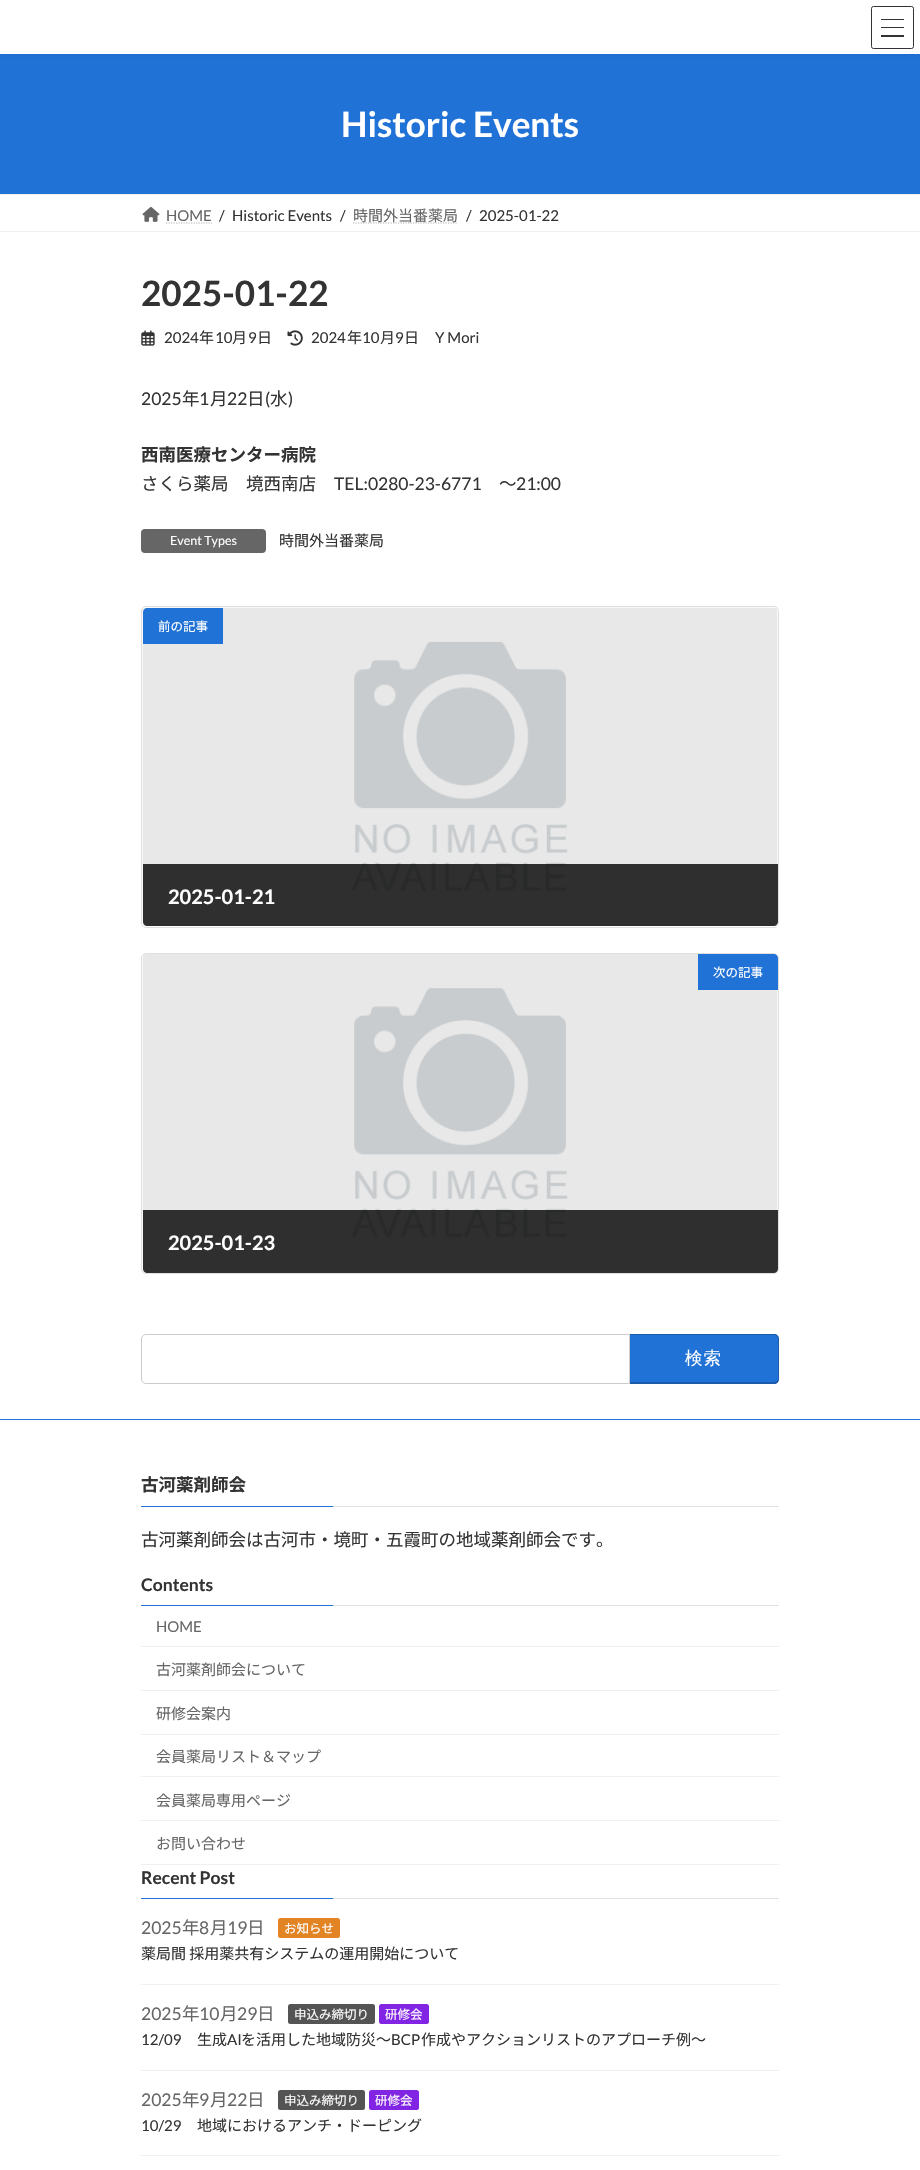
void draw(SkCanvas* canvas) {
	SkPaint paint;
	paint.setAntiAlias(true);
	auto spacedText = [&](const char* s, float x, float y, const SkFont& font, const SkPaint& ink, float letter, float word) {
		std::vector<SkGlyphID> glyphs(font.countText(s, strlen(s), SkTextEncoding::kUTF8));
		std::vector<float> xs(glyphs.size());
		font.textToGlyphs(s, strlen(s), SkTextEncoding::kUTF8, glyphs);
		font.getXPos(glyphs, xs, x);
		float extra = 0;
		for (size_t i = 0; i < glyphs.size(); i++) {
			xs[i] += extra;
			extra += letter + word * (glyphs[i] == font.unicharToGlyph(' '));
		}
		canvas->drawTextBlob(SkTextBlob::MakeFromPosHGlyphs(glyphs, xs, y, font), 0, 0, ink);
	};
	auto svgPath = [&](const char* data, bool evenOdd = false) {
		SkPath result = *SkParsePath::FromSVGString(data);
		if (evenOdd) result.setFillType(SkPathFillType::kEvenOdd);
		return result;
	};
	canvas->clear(0xffffffff);
	paint.setColor(0xff2072d6);
	canvas->drawRect(SkRect::MakeXYWH(0, 54, 920, 140), paint);
	paint.setColor(0x0d000000);
	paint.setMaskFilter(SkMaskFilter::MakeBlur(kNormal_SkBlurStyle, 2));
	canvas->drawRect(SkRect::MakeXYWH(0, 1, 920, 54), paint);
	paint.setMaskFilter(nullptr);
	paint.setColor(0xffffffff);
	canvas->drawRect(SkRect::MakeXYWH(0, 0, 920, 54), paint);
	paint.setColor(0xff333333);
	canvas->drawRect(SkRect::MakeXYWH(881, 19, 23, 1), paint);
	canvas->drawRect(SkRect::MakeXYWH(881, 27, 23, 1), paint);
	canvas->drawRect(SkRect::MakeXYWH(881, 35, 23, 2), paint);
	paint.setStroke(true);
	paint.setStrokeWidth(1);
	canvas->drawRoundRect(SkRect::MakeXYWH(871.5, 6.5, 42, 42), 2, 2, paint);
	SkFont f1(fontMgr->matchFamilyStyle("Lato", SkFontStyle::Bold()), 35);
	f1.setSubpixel(true);
	paint.setStroke(false);
	paint.setColor(0xffffffff);
	canvas->drawString("Historic Events", 341, 137, f1, paint);
	paint.setColor(0xfff0f0f0);
	canvas->drawRect(SkRect::MakeXYWH(0, 194, 920, 1), paint);
	canvas->drawRect(SkRect::MakeXYWH(0, 231, 920, 1), paint);
	canvas->drawImageRect(SkImages::DeferredFromEncodedData(SkData::MakeFromFileName("img1.png")), SkRect::MakeXYWH(142, 206, 18, 16), SkSamplingOptions());
	SkFont f2(fontMgr->matchFamilyStyle("Lato", SkFontStyle::Normal()), 15);
	f2.setSubpixel(true);
	paint.setColor(0xff666666);
	canvas->drawString("HOME", 166, 221, f2, paint);
	paint.setStroke(true);
	paint.setStrokeWidth(1.2);
	paint.setColor(0xffb3b3b3);
	paint.setPathEffect(SkDashPathEffect::Make({{1.25f, 1.25f}}, 0));
	canvas->drawPath(svgPath("M166 223H212"), paint);
	paint.setPathEffect(nullptr);
	paint.setStroke(false);
	paint.setColor(0xff333333);
	canvas->drawString("/", 219, 221, f2, paint);
	canvas->drawString("Historic Events", 232, 221, f2, paint);
	canvas->drawString("/", 340, 221, f2, paint);
	paint.setStroke(true);
	paint.setColor(0xffb3b3b3);
	paint.setPathEffect(SkDashPathEffect::Make({{1.25f, 1.25f}}, 0));
	canvas->drawPath(svgPath("M353 223H458"), paint);
	paint.setPathEffect(nullptr);
	SkFont f3(fontMgr->matchFamilyStyle("Noto Sans JP", SkFontStyle::Normal()), 15);
	f3.setSubpixel(true);
	paint.setStroke(false);
	paint.setColor(0xff666666);
	canvas->drawString("時間外当番薬局", 353, 221, f3, paint);
	paint.setColor(0xff333333);
	canvas->drawString("/", 466, 221, f2, paint);
	canvas->drawString("2025-01-22", 479, 221, f2, paint);
	canvas->drawString("2025-01-22", 141, 306, f1, paint);
	canvas->drawImageRect(SkImages::DeferredFromEncodedData(SkData::MakeFromFileName("img2.png")), SkRect::MakeXYWH(141, 330, 14, 16), SkSamplingOptions());
	canvas->drawString("2024", 164, 343, f2, paint);
	canvas->drawString("年", 199, 343, f3, paint);
	canvas->drawString("10", 215, 343, f2, paint);
	canvas->drawString("月", 232, 343, f3, paint);
	canvas->drawString("9", 248, 343, f2, paint);
	canvas->drawString("日", 257, 343, f3, paint);
	canvas->drawImageRect(SkImages::DeferredFromEncodedData(SkData::MakeFromFileName("img3.png")), SkRect::MakeXYWH(287, 330, 16, 16), SkSamplingOptions());
	canvas->drawString("2024", 311, 343, f2, paint);
	canvas->drawString("年", 347, 343, f3, paint);
	canvas->drawString("10", 362, 343, f2, paint);
	canvas->drawString("月", 380, 343, f3, paint);
	canvas->drawString("9", 395, 343, f2, paint);
	canvas->drawString("日", 404, 343, f3, paint);
	canvas->drawString("Y Mori", 435, 343, f2, paint);
	SkFont f4(fontMgr->matchFamilyStyle("Lato", SkFontStyle::Normal()), 17.5);
	f4.setSubpixel(true);
	canvas->drawString("2025", 141, 405, f4, paint);
	SkFont f5(fontMgr->matchFamilyStyle("Noto Sans JP", SkFontStyle::Normal()), 17.5);
	f5.setSubpixel(true);
	canvas->drawString("年", 182, 405, f5, paint);
	canvas->drawString("1", 199, 405, f4, paint);
	canvas->drawString("月", 210, 405, f5, paint);
	canvas->drawString("22", 227, 405, f4, paint);
	canvas->drawString("日", 247, 405, f5, paint);
	canvas->drawString("(", 265, 405, f4, paint);
	canvas->drawString("水", 270, 405, f5, paint);
	canvas->drawString(")", 288, 405, f4, paint);
	SkFont f6(fontMgr->matchFamilyStyle("Noto Sans JP", SkFontStyle::Bold()), 17.5);
	f6.setSubpixel(true);
	canvas->drawString("西南医療センター病院", 141, 461, f6, paint);
	canvas->drawString("さくら薬局　境西南店", 141, 490, f5, paint);
	canvas->drawString("TEL:0280-23-6771", 334, 490, f4, paint);
	canvas->drawString("～", 499, 490, f5, paint);
	canvas->drawString("21:00", 516, 490, f4, paint);
	paint.setColor(0xff666666);
	canvas->drawRoundRect(SkRect::MakeXYWH(141, 529, 125, 24), 4, 4, paint);
	SkFont f7(fontMgr->matchFamilyStyle("Lato", SkFontStyle::Normal()), 12.5);
	f7.setSubpixel(true);
	paint.setColor(0xffffffff);
	canvas->drawString("Event Types", 170, 545, f7, paint);
	paint.setColor(0xff333333);
	canvas->drawString("時間外当番薬局", 279, 546, f3, paint);
	paint.setStroke(true);
	paint.setStrokeWidth(1);
	paint.setColor(0xffdfdfdf);
	canvas->drawRoundRect(SkRect::MakeXYWH(141.5, 606.5, 637, 321), 4.5, 4.5, paint);
	canvas->drawImageRect(SkImages::DeferredFromEncodedData(SkData::MakeFromFileName("img4.png")), SkRect::MakeXYWH(142, 607, 636, 319), SkSamplingOptions());
	canvas->save();
	canvas->clipPath(svgPath("M147 608H774C776 608 778 610 778 612V922C778 924 776 926 774 926H147C145 926 143 924 143 922V612C143 610 145 608 147 608Z"), true);
	paint.setStroke(false);
	paint.setColor(0xffe5e5e5);
	canvas->drawRect(SkRect::MakeXYWH(143, 925, 635, 1), paint);
	canvas->restore();
	paint.setColor(0xff2072d6);
	canvas->drawPath(svgPath("M147 608H223V644H143V612C143 610 145 608 147 608Z"), paint);
	SkFont f8(fontMgr->matchFamilyStyle("Noto Sans JP", SkFontStyle::Normal()), 12.5);
	f8.setSubpixel(true);
	paint.setColor(0xffffffff);
	canvas->drawString("前の記事", 158, 631, f8, paint);
	paint.setColor(0xcc000000);
	canvas->drawPath(svgPath("M143 864H778V922C778 924 776 926 774 926H147C145 926 143 924 143 922Z"), paint);
	SkFont f9(fontMgr->matchFamilyStyle("Lato", SkFontStyle::Bold()), 20);
	f9.setSubpixel(true);
	paint.setColor(0xffffffff);
	canvas->drawString("2025-01-21", 168, 904, f9, paint);
	paint.setStroke(true);
	paint.setColor(0xffdfdfdf);
	canvas->drawRoundRect(SkRect::MakeXYWH(141.5, 953.5, 637, 320), 4.5, 4.5, paint);
	canvas->drawImageRect(SkImages::DeferredFromEncodedData(SkData::MakeFromFileName("img5.png")), SkRect::MakeXYWH(142, 954, 636, 319), SkSamplingOptions());
	canvas->save();
	canvas->clipPath(svgPath("M147 954H774C776 954 778 956 778 958V1269C778 1271 776 1273 774 1273H147C145 1273 143 1271 143 1269V958C143 956 145 954 147 954Z"), true);
	paint.setStroke(false);
	paint.setColor(0xffe5e5e5);
	canvas->drawRect(SkRect::MakeXYWH(143, 1271, 635, 1), paint);
	canvas->restore();
	paint.setColor(0xff2072d6);
	canvas->drawPath(svgPath("M698 954H774C776 954 778 956 778 958V990H698Z"), paint);
	paint.setColor(0xffffffff);
	canvas->drawString("次の記事", 713, 977, f8, paint);
	paint.setColor(0xcc000000);
	canvas->drawPath(svgPath("M143 1210H778V1269C778 1271 776 1273 774 1273H147C145 1273 143 1271 143 1269Z"), paint);
	paint.setColor(0xffffffff);
	canvas->drawString("2025-01-23", 168, 1250, f9, paint);
	paint.setStroke(true);
	paint.setColor(0xffcccccc);
	canvas->drawPath(svgPath("M146 1334.5H629.5V1383.5H146C143.5 1383.5 141.5 1381.5 141.5 1379V1339C141.5 1336.5 143.5 1334.5 146 1334.5Z"), paint);
	paint.setStroke(false);
	paint.setColor(0xff2072d6);
	canvas->drawPath(svgPath("M630 1334H774C777 1334 779 1336 779 1339V1379C779 1382 777 1384 774 1384H630Z"), paint);
	paint.setColor(0x33000000);
	canvas->drawPath(svgPath("M630 1334H774C777 1334 779 1336 779 1339V1379C779 1382 777 1384 774 1384H630ZM630 1335H774C776 1335 778 1337 778 1339V1379C778 1381 776 1382 774 1382H630Z", true), paint);
	SkFont f10(fontMgr->matchFamilyStyle("WenQuanYi Zen Hei", SkFontStyle(500, SkFontStyle::kNormal_Width, SkFontStyle::kUpright_Slant)), 17.5);
	f10.setSubpixel(true);
	paint.setColor(0xffffffff);
	spacedText("検索", 685, 1364, f10, paint, 1, 0);
	paint.setColor(0xff2072d6);
	canvas->drawRect(SkRect::MakeXYWH(0, 1419, 920, 1), paint);
	paint.setColor(0xffe0e0e0);
	canvas->drawRect(SkRect::MakeXYWH(333, 1506, 446, 1), paint);
	paint.setColor(0xff333333);
	canvas->drawString("古河薬剤師会", 141, 1491, f6, paint);
	paint.setColor(0xff2072d6);
	canvas->drawRect(SkRect::MakeXYWH(141, 1506, 192, 1), paint);
	paint.setColor(0xff333333);
	canvas->drawString("古河薬剤師会は古河市・境町・五霞町の地域薬剤師会です。", 141, 1546, f5, paint);
	paint.setColor(0xffe0e0e0);
	canvas->drawRect(SkRect::MakeXYWH(333, 1605, 446, 1), paint);
	SkFont f11(fontMgr->matchFamilyStyle("Lato", SkFontStyle::Bold()), 17.5);
	f11.setSubpixel(true);
	paint.setColor(0xff333333);
	canvas->drawString("Contents", 141, 1591, f11, paint);
	paint.setColor(0xff2072d6);
	canvas->drawRect(SkRect::MakeXYWH(141, 1605, 192, 1), paint);
	paint.setColor(0xfff0f0f0);
	canvas->drawRect(SkRect::MakeXYWH(141, 1646, 638, 1), paint);
	paint.setColor(0xff666666);
	canvas->drawString("HOME", 156, 1632, f2, paint);
	paint.setColor(0xfff0f0f0);
	canvas->drawRect(SkRect::MakeXYWH(141, 1690, 638, 1), paint);
	paint.setColor(0xff666666);
	canvas->drawString("古河薬剤師会について", 156, 1675, f3, paint);
	paint.setColor(0xfff0f0f0);
	canvas->drawRect(SkRect::MakeXYWH(141, 1734, 638, 1), paint);
	paint.setColor(0xff666666);
	canvas->drawString("研修会案内", 156, 1719, f3, paint);
	paint.setColor(0xfff0f0f0);
	canvas->drawRect(SkRect::MakeXYWH(141, 1776, 638, 1), paint);
	paint.setColor(0xff666666);
	canvas->drawString("会員薬局リスト＆マップ", 156, 1762, f3, paint);
	paint.setColor(0xfff0f0f0);
	canvas->drawRect(SkRect::MakeXYWH(141, 1820, 638, 1), paint);
	paint.setColor(0xff666666);
	canvas->drawString("会員薬局専用ページ", 156, 1806, f3, paint);
	paint.setColor(0xfff0f0f0);
	canvas->drawRect(SkRect::MakeXYWH(141, 1864, 638, 1), paint);
	paint.setColor(0xff666666);
	canvas->drawString("お問い合わせ", 156, 1849, f3, paint);
	paint.setColor(0xffe0e0e0);
	canvas->drawRect(SkRect::MakeXYWH(333, 1898, 446, 1), paint);
	paint.setColor(0xff333333);
	canvas->drawString("Recent Post", 141, 1884, f11, paint);
	paint.setColor(0xff2072d6);
	canvas->drawRect(SkRect::MakeXYWH(141, 1898, 192, 1), paint);
	paint.setColor(0xfff0f0f0);
	canvas->drawRect(SkRect::MakeXYWH(141, 1984, 638, 1), paint);
	paint.setColor(0xff666666);
	canvas->drawString("2025", 141, 1934, f4, paint);
	canvas->drawString("年", 182, 1934, f5, paint);
	canvas->drawString("8", 199, 1934, f4, paint);
	canvas->drawString("月", 210, 1934, f5, paint);
	canvas->drawString("19", 227, 1934, f4, paint);
	canvas->drawString("日", 247, 1934, f5, paint);
	paint.setColor(0xffe28324);
	canvas->drawRoundRect(SkRect::MakeXYWH(278, 1918, 62, 20), 2.5, 2.5, paint);
	paint.setColor(0xffffffff);
	canvas->drawString("お知らせ", 284, 1933, f8, paint);
	paint.setColor(0xff333333);
	canvas->drawString("薬局間 採用薬共有システムの運用開始について", 141, 1959, f3, paint);
	paint.setColor(0xfff0f0f0);
	canvas->drawRect(SkRect::MakeXYWH(141, 2070, 638, 1), paint);
	paint.setColor(0xff666666);
	canvas->drawString("2025", 141, 2020, f4, paint);
	canvas->drawString("年", 182, 2020, f5, paint);
	canvas->drawString("10", 199, 2020, f4, paint);
	canvas->drawString("月", 220, 2020, f5, paint);
	canvas->drawString("29", 237, 2020, f4, paint);
	canvas->drawString("日", 257, 2020, f5, paint);
	paint.setColor(0xff545454);
	canvas->drawRoundRect(SkRect::MakeXYWH(288, 2004, 87, 20), 2.5, 2.5, paint);
	paint.setColor(0xffffffff);
	canvas->drawString("申込み締切り", 294, 2019, f8, paint);
	paint.setColor(0xff8224e3);
	canvas->drawRoundRect(SkRect::MakeXYWH(379, 2004, 50, 20), 2.5, 2.5, paint);
	paint.setColor(0xffffffff);
	canvas->drawString("研修会", 385, 2019, f8, paint);
	paint.setColor(0xff333333);
	canvas->drawString("12/09", 141, 2045, f2, paint);
	canvas->drawString("生成", 197, 2045, f3, paint);
	canvas->drawString("AI", 227, 2045, f2, paint);
	canvas->drawString("を活用した地域防災～", 241, 2045, f3, paint);
	canvas->drawString("BCP", 391, 2045, f2, paint);
	canvas->drawString("作成やアクションリストのアプローチ例～", 421, 2045, f3, paint);
	paint.setColor(0xfff0f0f0);
	canvas->drawRect(SkRect::MakeXYWH(141, 2155, 638, 1), paint);
	paint.setColor(0xff666666);
	canvas->drawString("2025", 141, 2106, f4, paint);
	canvas->drawString("年", 182, 2106, f5, paint);
	canvas->drawString("9", 199, 2106, f4, paint);
	canvas->drawString("月", 210, 2106, f5, paint);
	canvas->drawString("22", 227, 2106, f4, paint);
	canvas->drawString("日", 247, 2106, f5, paint);
	paint.setColor(0xff545454);
	canvas->drawRoundRect(SkRect::MakeXYWH(278, 2090, 87, 20), 2.5, 2.5, paint);
	paint.setColor(0xffffffff);
	canvas->drawString("申込み締切り", 284, 2105, f8, paint);
	paint.setColor(0xff8224e3);
	canvas->drawRoundRect(SkRect::MakeXYWH(369, 2090, 50, 20), 2.5, 2.5, paint);
	paint.setColor(0xffffffff);
	canvas->drawString("研修会", 375, 2105, f8, paint);
	paint.setColor(0xff333333);
	canvas->drawString("10/29", 141, 2131, f2, paint);
	canvas->drawString("地域におけるアンチ・ドーピング", 197, 2131, f3, paint);
}
